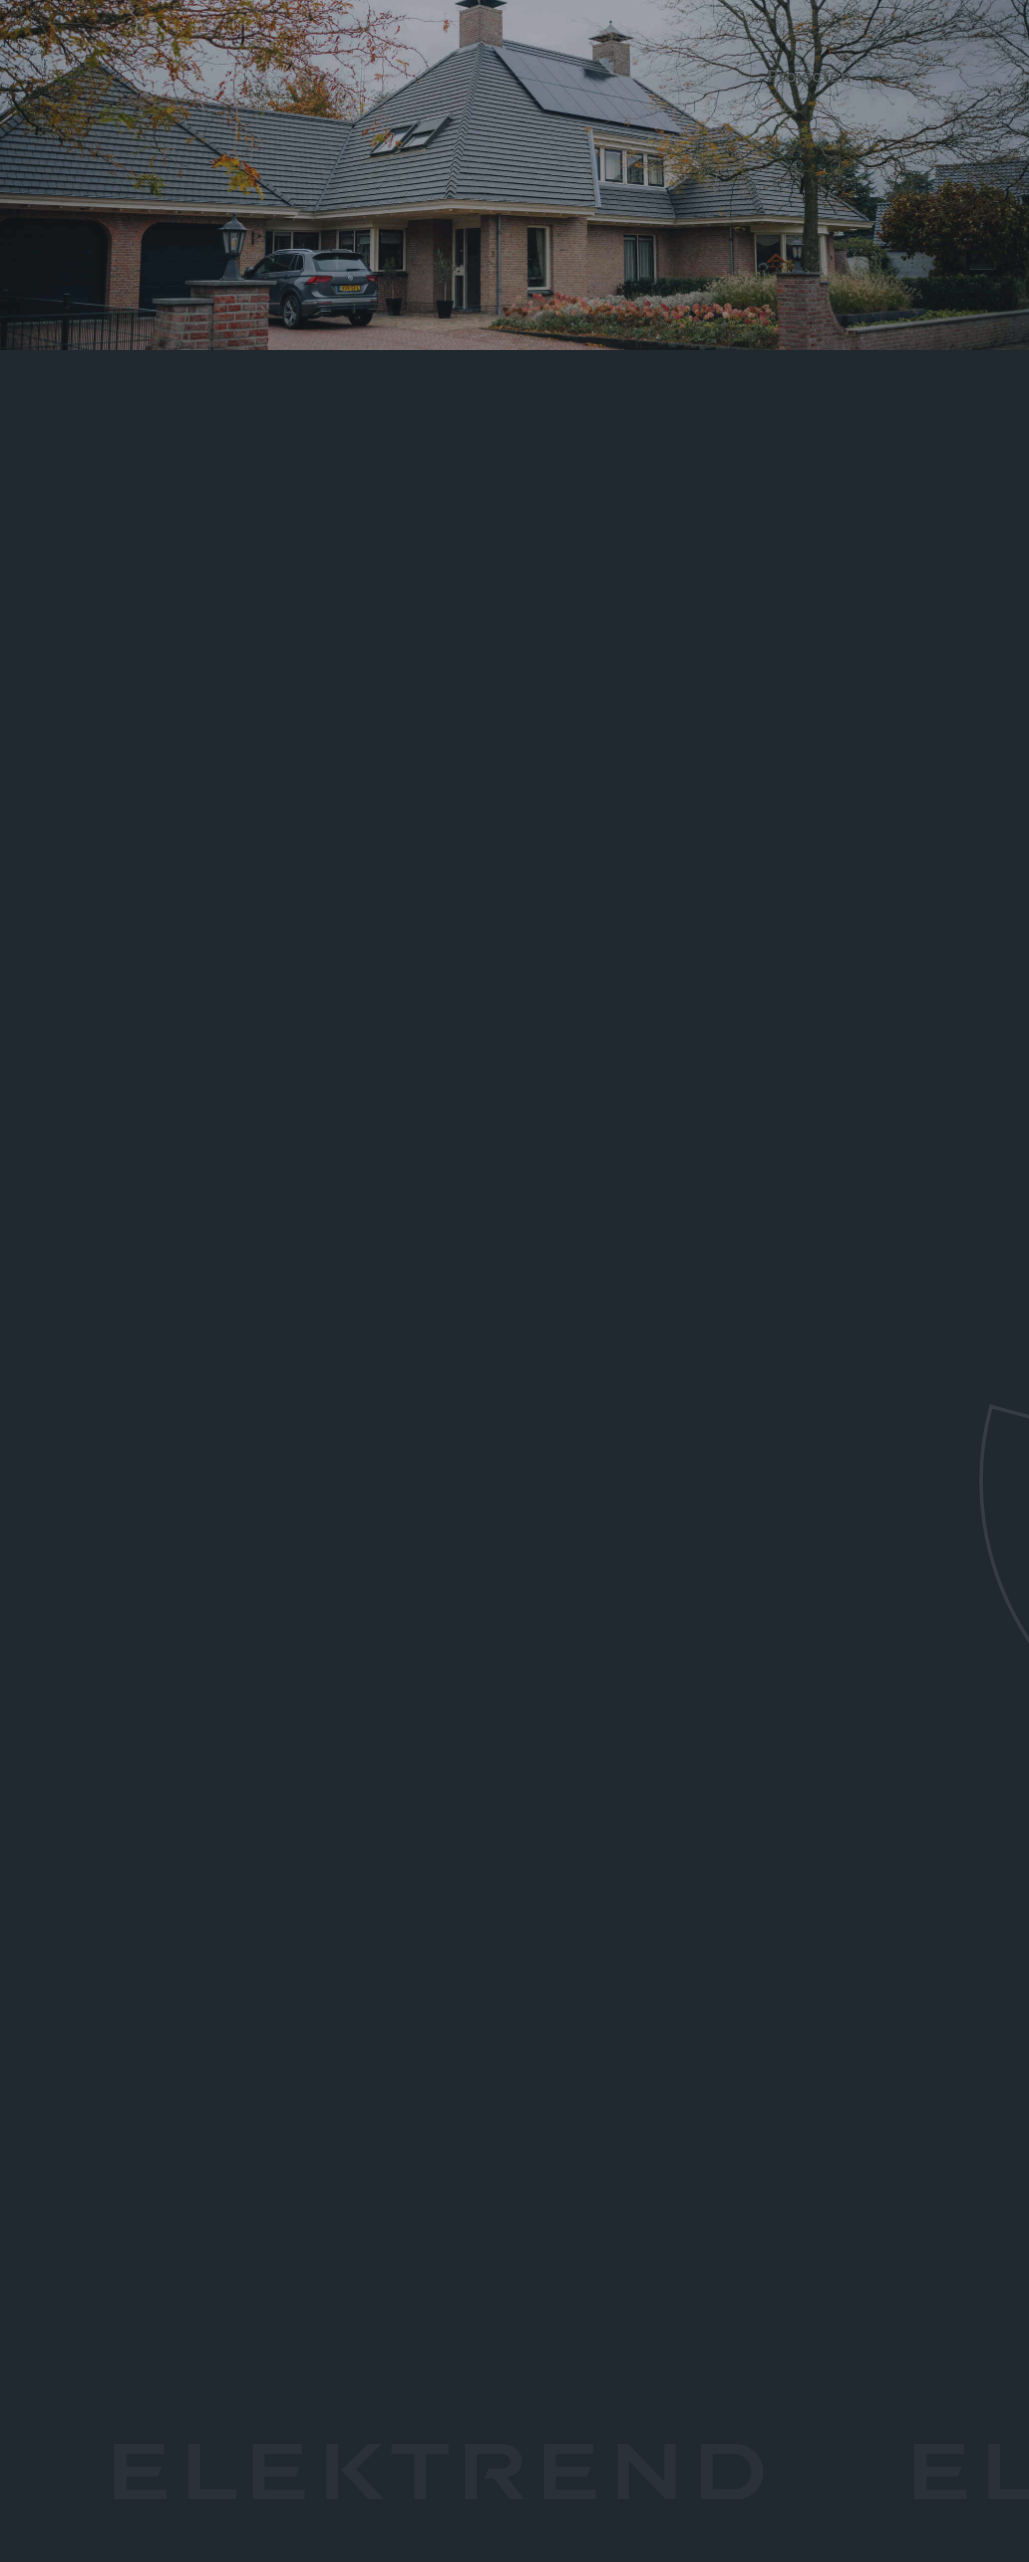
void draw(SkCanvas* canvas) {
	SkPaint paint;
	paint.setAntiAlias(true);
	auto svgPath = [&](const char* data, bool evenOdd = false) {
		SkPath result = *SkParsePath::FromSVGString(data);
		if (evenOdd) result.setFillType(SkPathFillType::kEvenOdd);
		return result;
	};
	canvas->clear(0xff202830);
	canvas->drawImageRect(SkImages::DeferredFromEncodedData(SkData::MakeFromFileName("img1.png")), SkRect::MakeXYWH(0, 0, 1029, 350), SkSamplingOptions());
	paint.setStroke(true);
	paint.setStrokeWidth(3.5);
	paint.setColor(0xff353c43);
	canvas->drawPath(svgPath("M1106 1537L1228.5 1470.5L991 1406.5C949 1562 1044 1722.5 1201.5 1765C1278 1785.5 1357.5 1775 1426 1736.5L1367.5 1637.5C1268.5 1693.5 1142 1645 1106 1537ZM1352.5 1202C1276 1181.5 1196 1191.5 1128 1230L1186.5 1329.5C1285.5 1273.5 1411.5 1322 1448 1430L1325 1496.5L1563 1560C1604.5 1405 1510 1244 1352.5 1202Z"), paint);
	canvas->drawImageRect(SkImages::DeferredFromEncodedData(SkData::MakeFromFileName("img2.png")), SkRect::MakeXYWH(114, 2444, 915, 55), SkSamplingOptions());
	SkFont f1(fontMgr->matchFamilyStyle("Work Sans", SkFontStyle(500, SkFontStyle::kNormal_Width, SkFontStyle::kUpright_Slant)), 18);
	f1.setSubpixel(true);
	paint.setStroke(false);
	paint.setColor(0xff4c5254);
	canvas->drawString("Projecten", 767, 82, f1, paint);
}
